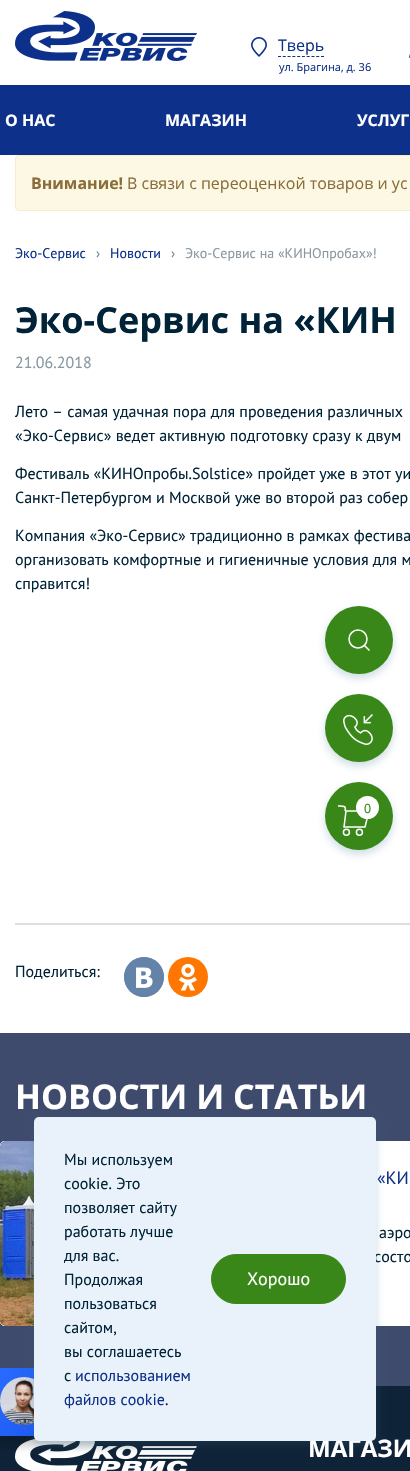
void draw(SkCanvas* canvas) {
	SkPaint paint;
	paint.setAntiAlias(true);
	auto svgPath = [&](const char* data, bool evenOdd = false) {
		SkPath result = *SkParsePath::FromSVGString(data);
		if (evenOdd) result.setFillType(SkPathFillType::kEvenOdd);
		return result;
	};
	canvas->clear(0xffffffff);
	canvas->drawImageRect(SkImages::DeferredFromEncodedData(SkData::MakeFromFileName("img1.png")), SkRect::MakeXYWH(15, 11, 182, 50), SkSamplingOptions());
	canvas->drawImageRect(SkImages::DeferredFromEncodedData(SkData::MakeFromFileName("img2.png")), SkRect::MakeXYWH(251, 37, 16, 20), SkSamplingOptions());
	SkFont f1(fontMgr->matchFamilyStyle("Open Sans", SkFontStyle::Normal()), 16);
	f1.setSubpixel(true);
	paint.setColor(0xff0d318a);
	canvas->drawString("Тверь", 278, 51, f1, paint);
	paint.setStroke(true);
	paint.setStrokeWidth(1);
	paint.setPathEffect(SkDashPathEffect::Make({{3, 1.78f}}, 0));
	canvas->drawPath(svgPath("M278 56.5H324"), paint);
	paint.setPathEffect(nullptr);
	SkFont f2(fontMgr->matchFamilyStyle("Open Sans", SkFontStyle::Normal()), 11);
	f2.setSubpixel(true);
	paint.setStroke(false);
	canvas->drawString("ул. Брагина, д. 36", 279, 71, f2, paint);
	paint.setStroke(true);
	paint.setStrokeWidth(1.6);
	canvas->drawPath(svgPath("M410 58C410 46 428 46 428 58"), paint);
	paint.setStroke(false);
	canvas->drawRect(SkRect::MakeXYWH(0, 85, 410, 70), paint);
	SkFont f3(fontMgr->matchFamilyStyle("Open Sans", SkFontStyle::Bold()), 16);
	f3.setSubpixel(true);
	paint.setColor(0xffffffff);
	canvas->drawString("О НАС", 5, 126, f3, paint);
	canvas->drawString("МАГАЗИН", 165, 126, f3, paint);
	canvas->drawString("УСЛУГ", 357, 126, f3, paint);
	paint.setColor(0xfffcf8e3);
	canvas->drawRoundRect(SkRect::MakeXYWH(15.5, 155.5, 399, 55), 3.5, 3.5, paint);
	paint.setStroke(true);
	paint.setStrokeWidth(1);
	paint.setColor(0xfffaebcc);
	canvas->drawRoundRect(SkRect::MakeXYWH(15.5, 155.5, 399, 55), 3.5, 3.5, paint);
	paint.setStroke(false);
	paint.setColor(0xff8a6d3b);
	canvas->drawString("Внимание!", 31, 189, f3, paint);
	canvas->drawString("В связи с переоценкой товаров и ус", 127, 189, f1, paint);
	SkFont f4(fontMgr->matchFamilyStyle("PT Sans", SkFontStyle::Normal()), 14);
	f4.setSubpixel(true);
	paint.setColor(0xff0d318a);
	canvas->drawString("Эко-Cервис", 15, 258, f4, paint);
	paint.setColor(0xff668393);
	canvas->drawString("›", 96, 258, f4, paint);
	paint.setColor(0xff0d318a);
	canvas->drawString("Новости", 110, 258, f4, paint);
	paint.setColor(0xff668393);
	canvas->drawString("›", 171, 258, f4, paint);
	paint.setColor(0xff8998a1);
	canvas->drawString("Эко-Сервис на «КИНОпробах»!", 185, 258, f4, paint);
	SkFont f5(fontMgr->matchFamilyStyle("Open Sans", SkFontStyle::Bold()), 36);
	f5.setSubpixel(true);
	paint.setColor(0xff002337);
	canvas->drawString("Эко-Сервис на «КИН", 15, 333, f5, paint);
	SkFont f6(fontMgr->matchFamilyStyle("PT Sans", SkFontStyle::Normal()), 16);
	f6.setSubpixel(true);
	paint.setColor(0xff8998a1);
	canvas->drawString("21.06.2018", 15, 368, f6, paint);
	paint.setColor(0xff002337);
	canvas->drawString("Лето – самая удачная пора для проведения различных", 15, 417, f6, paint);
	canvas->drawString("«Эко-Сервис» ведет активную подготовку сразу к двум", 15, 441, f6, paint);
	canvas->drawString("Фестиваль «КИНОпробы.Solstice» пройдет уже в этот уи", 15, 479, f6, paint);
	canvas->drawString("Санкт-Петербургом и Москвой уже во второй раз собер", 15, 503, f6, paint);
	canvas->drawString("Компания «Эко-Сервис» традиционно в рамках фестива", 15, 541, f6, paint);
	canvas->drawString("организовать комфортные и гигиеничные условия для м", 15, 565, f6, paint);
	canvas->drawString("справится!", 15, 589, f6, paint);
	paint.setColor(0xffdedede);
	canvas->drawRect(SkRect::MakeXYWH(15, 923, 395, 2), paint);
	paint.setColor(0xff002337);
	canvas->drawString("Поделиться:", 15, 977, f6, paint);
	paint.setColor(0xff6383a8);
	canvas->drawCircle(144, 977, 20, paint);
	canvas->drawImageRect(SkImages::DeferredFromEncodedData(SkData::MakeFromFileName("img3.png")), SkRect::MakeXYWH(124, 957, 40, 40), SkSamplingOptions());
	paint.setColor(0xffff7700);
	canvas->drawCircle(188, 977, 20, paint);
	canvas->drawImageRect(SkImages::DeferredFromEncodedData(SkData::MakeFromFileName("img4.png")), SkRect::MakeXYWH(179, 963, 18, 28), SkSamplingOptions());
	paint.setColor(0xff3e4b6c);
	canvas->drawRect(SkRect::MakeXYWH(0, 1033, 410, 353), paint);
	SkFont f7(fontMgr->matchFamilyStyle("Open Sans", SkFontStyle::Bold()), 34);
	f7.setSubpixel(true);
	paint.setColor(0xffffffff);
	canvas->drawString("НОВОСТИ И СТАТЬИ", 15, 1109, f7, paint);
	canvas->drawRoundRect(SkRect::MakeXYWH(0, 1141, 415, 185), 5, 5, paint);
	canvas->drawPath(svgPath("M5 1141H185V1326H5C2 1326 0 1324 0 1321V1146C0 1143 2 1141 5 1141Z"), paint);
	canvas->drawImageRect(SkImages::DeferredFromEncodedData(SkData::MakeFromFileName("img5.png")), SkRect::MakeXYWH(0, 1141, 34, 185), SkSamplingOptions());
	SkFont f8(fontMgr->matchFamilyStyle("PT Sans", SkFontStyle::Normal()), 18);
	f8.setSubpixel(true);
	paint.setColor(0xff0d318a);
	canvas->drawString("«КИ", 377, 1184, f8, paint);
	paint.setColor(0xff002337);
	canvas->drawString("аэро", 379, 1238, f6, paint);
	canvas->drawString("состо", 374, 1262, f6, paint);
	paint.setColor(0x4035708b);
	paint.setMaskFilter(SkMaskFilter::MakeBlur(kNormal_SkBlurStyle, 4.5));
	canvas->drawRoundRect(SkRect::MakeXYWH(325, 610, 68, 68), 34, 34, paint);
	paint.setMaskFilter(nullptr);
	paint.setColor(0xff398718);
	canvas->drawCircle(359, 640, 34, paint);
	paint.setStroke(true);
	paint.setStrokeWidth(1.5);
	paint.setColor(0xffffffff);
	canvas->drawCircle(358, 639, 9, paint);
	canvas->drawPath(svgPath("M364 645L369.5 650.5"), paint);
	paint.setStroke(false);
	paint.setColor(0x4035708b);
	paint.setMaskFilter(SkMaskFilter::MakeBlur(kNormal_SkBlurStyle, 4.5));
	canvas->drawRoundRect(SkRect::MakeXYWH(325, 698, 68, 68), 34, 34, paint);
	paint.setMaskFilter(nullptr);
	paint.setColor(0xff398718);
	canvas->drawCircle(359, 728, 34, paint);
	canvas->drawImageRect(SkImages::DeferredFromEncodedData(SkData::MakeFromFileName("img6.png")), SkRect::MakeXYWH(343, 714, 30, 31), SkSamplingOptions());
	paint.setColor(0x4035708b);
	paint.setMaskFilter(SkMaskFilter::MakeBlur(kNormal_SkBlurStyle, 4.5));
	canvas->drawRoundRect(SkRect::MakeXYWH(325, 786, 68, 68), 34, 34, paint);
	paint.setMaskFilter(nullptr);
	paint.setColor(0xff398718);
	canvas->drawCircle(359, 816, 34, paint);
	paint.setStroke(true);
	paint.setColor(0xffffffff);
	canvas->drawPath(svgPath("M346 811H369L365 827H344ZM345 811C347 805 341.5 806 338 806"), paint);
	paint.setStroke(false);
	canvas->drawCircle(367.5, 807.5, 11.5, paint);
	SkFont f9(fontMgr->matchFamilyStyle("PT Sans", SkFontStyle::Normal()), 13);
	f9.setSubpixel(true);
	paint.setColor(0xff398718);
	canvas->drawString("0", 364, 813, f9, paint);
	paint.setStroke(true);
	paint.setColor(0xffffffff);
	canvas->drawCircle(346.4, 832.3, 3, paint);
	canvas->drawCircle(359.4, 832.3, 3, paint);
	paint.setStroke(false);
	paint.setColor(0xff0f2338);
	canvas->drawRect(SkRect::MakeXYWH(0, 1386, 410, 85), paint);
	canvas->drawImageRect(SkImages::DeferredFromEncodedData(SkData::MakeFromFileName("img8.png")), SkRect::MakeXYWH(15, 1439, 182, 32), SkSamplingOptions());
	paint.setColor(0x33000000);
	paint.setMaskFilter(SkMaskFilter::MakeBlur(kNormal_SkBlurStyle, 5));
	canvas->drawRoundRect(SkRect::MakeXYWH(-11, 1378, 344, 68), 10, 10, paint);
	paint.setMaskFilter(nullptr);
	{
		const SkColor colors[] = {0xff0016c8, 0xff296fff};
		const float stops[] = {0, 1};
		const SkPoint ends[] = {{295, 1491}, {21, 1313}};
		paint.setShader(SkGradientShader::MakeLinear(ends, colors, stops, 2, SkTileMode::kClamp));
		paint.setAlpha(255);
	}
	canvas->drawRect(SkRect::MakeXYWH(0, 1368, 34, 68), paint);
	canvas->drawImageRect(SkImages::DeferredFromEncodedData(SkData::MakeFromFileName("img7.png")), SkRect::MakeXYWH(0, 1377, 34, 48), SkSamplingOptions());
	paint.setShader(nullptr);
	paint.setColor(0x4035708b);
	paint.setMaskFilter(SkMaskFilter::MakeBlur(kNormal_SkBlurStyle, 4.5));
	canvas->drawRoundRect(SkRect::MakeXYWH(34, 1121, 342, 324), 5, 5, paint);
	paint.setMaskFilter(nullptr);
	SkFont f10(fontMgr->matchFamilyStyle("Open Sans", SkFontStyle::Bold()), 24);
	f10.setSubpixel(true);
	paint.setColor(0xffffffff);
	canvas->drawString("МАГАЗИ", 308, 1457, f10, paint);
	paint.setColor(0xffe9f2fb);
	canvas->drawRoundRect(SkRect::MakeXYWH(34, 1117, 342, 324), 5, 5, paint);
	paint.setColor(0xff002337);
	canvas->drawString("Мы используем", 64, 1165, f6, paint);
	canvas->drawString("cookie. Это", 64, 1189, f6, paint);
	canvas->drawString("позволяет сайту", 64, 1213, f6, paint);
	canvas->drawString("работать лучше", 64, 1237, f6, paint);
	canvas->drawString("для вас.", 64, 1261, f6, paint);
	canvas->drawString("Продолжая", 64, 1285, f6, paint);
	canvas->drawString("пользоваться", 64, 1309, f6, paint);
	canvas->drawString("сайтом,", 64, 1333, f6, paint);
	canvas->drawString("вы соглашаетесь", 64, 1357, f6, paint);
	canvas->drawString("с", 64, 1381, f6, paint);
	paint.setColor(0xff0d318a);
	canvas->drawString("использованием", 75, 1381, f6, paint);
	canvas->drawString("файлов cookie", 64, 1405, f6, paint);
	paint.setColor(0xff002337);
	canvas->drawString(".", 165, 1405, f6, paint);
	paint.setColor(0xff398718);
	canvas->drawRoundRect(SkRect::MakeXYWH(211.5, 1254.5, 134, 49), 24.5, 24.5, paint);
	paint.setStroke(true);
	paint.setStrokeWidth(1);
	canvas->drawRoundRect(SkRect::MakeXYWH(211.5, 1254.5, 134, 49), 24.5, 24.5, paint);
	paint.setStroke(false);
	paint.setColor(0xffffffff);
	canvas->drawString("Хорошо", 247, 1285, f8, paint);
}
